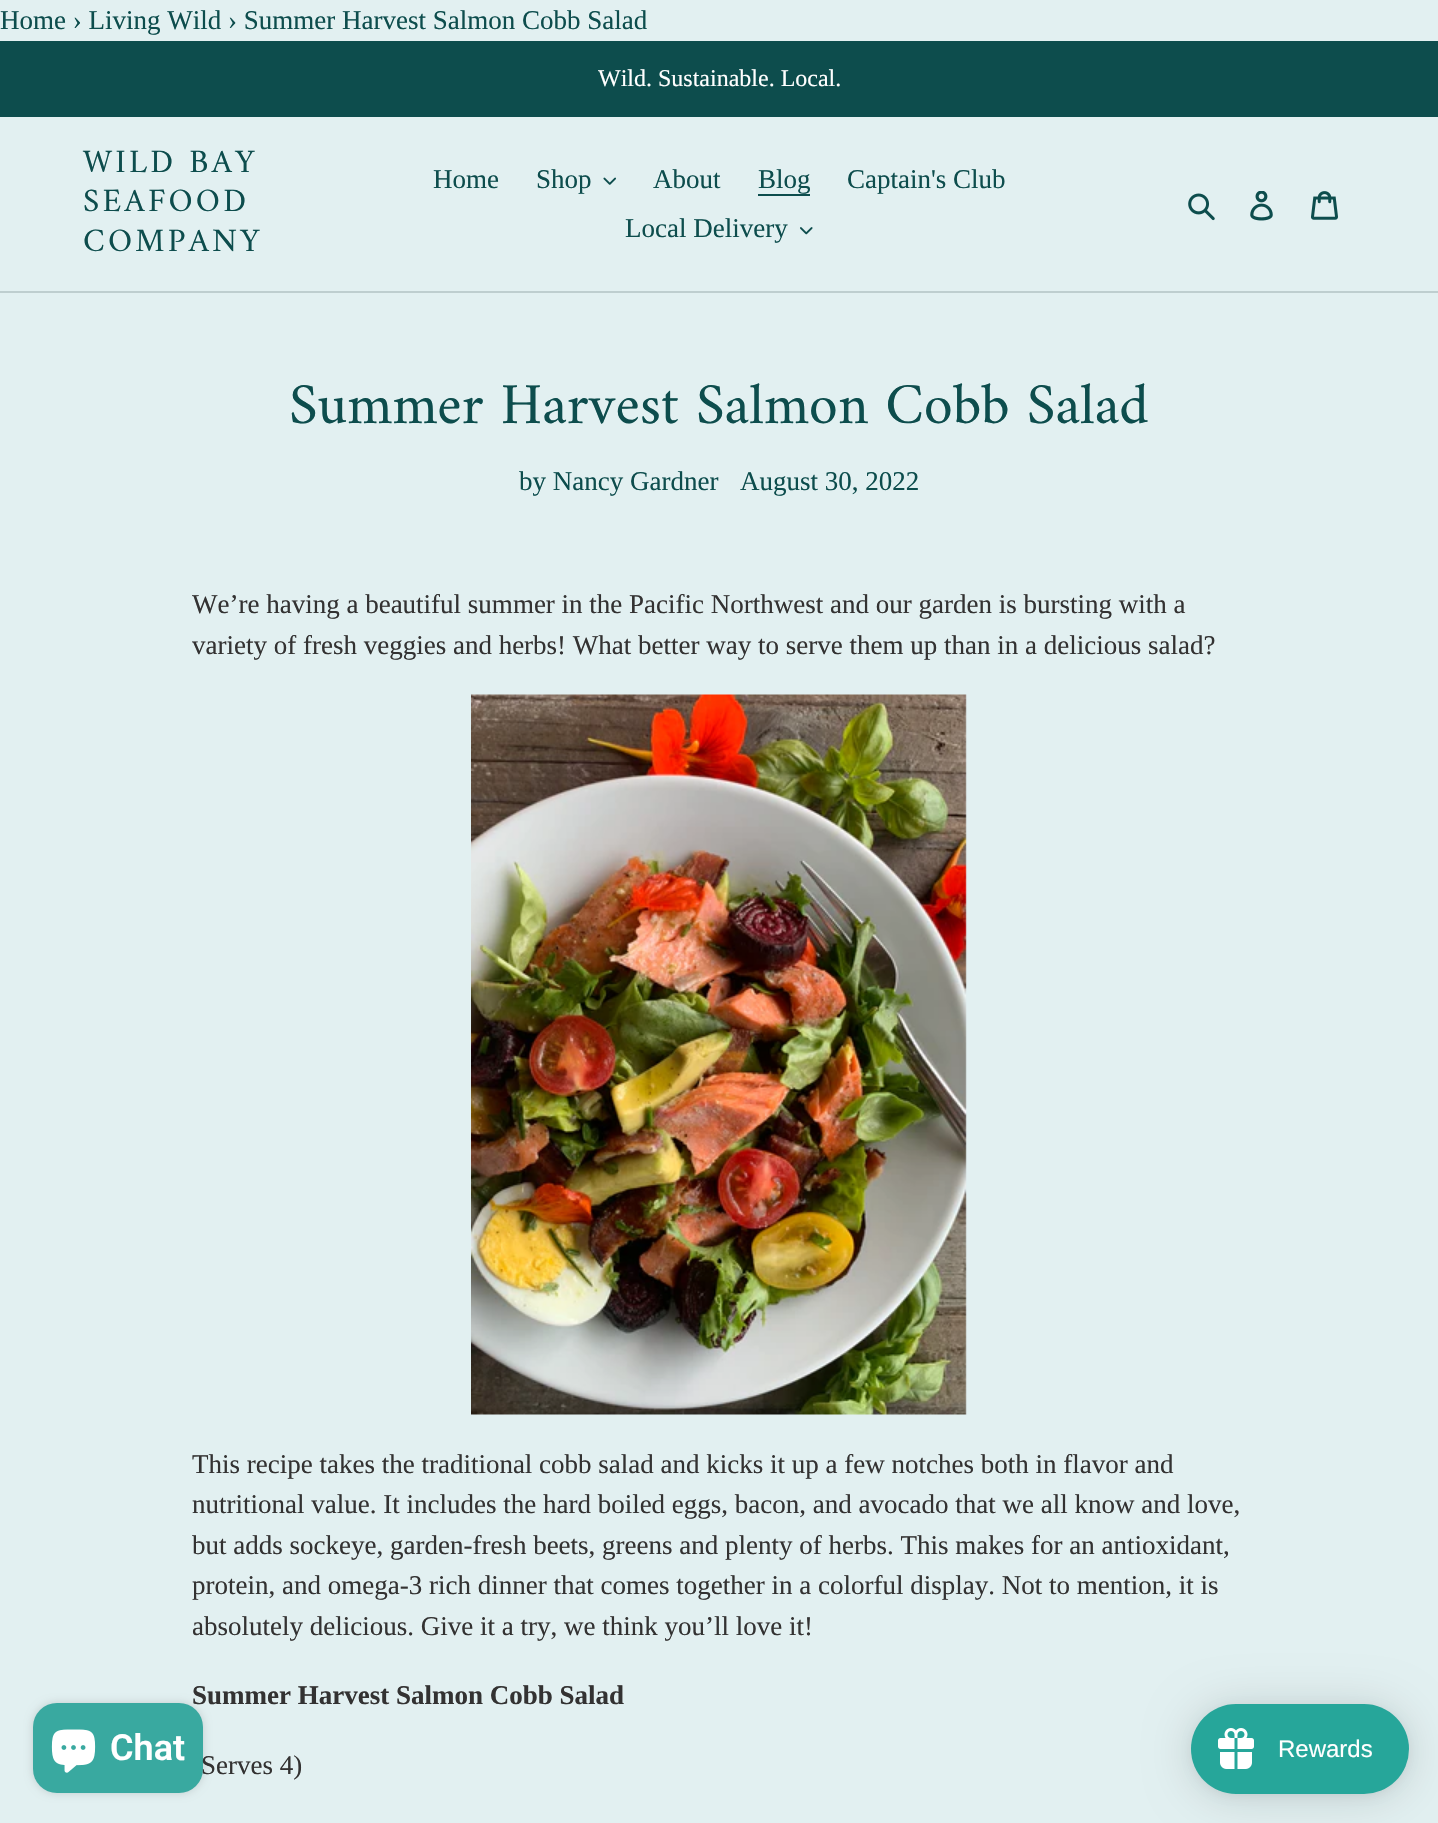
void draw(SkCanvas* canvas) {
	SkPaint paint;
	paint.setAntiAlias(true);
	auto spacedText = [&](const char* s, float x, float y, const SkFont& font, const SkPaint& ink, float letter, float word) {
		std::vector<SkGlyphID> glyphs(font.countText(s, strlen(s), SkTextEncoding::kUTF8));
		std::vector<float> xs(glyphs.size());
		font.textToGlyphs(s, strlen(s), SkTextEncoding::kUTF8, glyphs);
		font.getXPos(glyphs, xs, x);
		float extra = 0;
		for (size_t i = 0; i < glyphs.size(); i++) {
			xs[i] += extra;
			extra += letter + word * (glyphs[i] == font.unicharToGlyph(' '));
		}
		canvas->drawTextBlob(SkTextBlob::MakeFromPosHGlyphs(glyphs, xs, y, font), 0, 0, ink);
	};
	canvas->clear(0xffe2f0f1);
	SkFont f1(fontMgr->matchFamilyStyle("Liberation Serif", SkFontStyle::Normal()), 27);
	f1.setSubpixel(true);
	paint.setColor(0xff0d4d4d);
	canvas->drawString("Home › Living Wild › Summer Harvest Salmon Cobb Salad", 0, 29, f1, paint);
	canvas->drawRect(SkRect::MakeXYWH(0, 41, 1438, 76), paint);
	SkFont f2(fontMgr->matchFamilyStyle("Liberation Serif", SkFontStyle::Normal()), 24);
	f2.setSubpixel(true);
	paint.setColor(0xffffffff);
	canvas->drawString("Wild. Sustainable. Local.", 598, 86, f2, paint);
	paint.setColor(0xffbececf);
	canvas->drawRect(SkRect::MakeXYWH(0, 291, 1438, 2), paint);
	SkFont f3(fontMgr->matchFamilyStyle("Amiri", SkFontStyle::Normal()), 33);
	f3.setSubpixel(true);
	paint.setColor(0xff0d4d4d);
	spacedText("WILD BAY", 83, 172, f3, paint, 3.25, 0);
	spacedText("SEAFOOD", 83, 211, f3, paint, 3.25, 0);
	spacedText("COMPANY", 83, 251, f3, paint, 3.25, 0);
	canvas->drawString("Home", 433, 188, f1, paint);
	canvas->drawString("Shop", 536, 188, f1, paint);
	canvas->drawImageRect(SkImages::DeferredFromEncodedData(SkData::MakeFromFileName("img1.png")), SkRect::MakeXYWH(603, 177, 13, 8), SkSamplingOptions());
	canvas->drawString("About", 653, 188, f1, paint);
	canvas->drawString("Blog", 758, 188, f1, paint);
	canvas->drawRect(SkRect::MakeXYWH(758, 194, 52, 2), paint);
	canvas->drawString("Captain's Club", 847, 188, f1, paint);
	canvas->drawString("Local Delivery", 625, 237, f1, paint);
	canvas->drawImageRect(SkImages::DeferredFromEncodedData(SkData::MakeFromFileName("img2.png")), SkRect::MakeXYWH(800, 227, 13, 8), SkSamplingOptions());
	canvas->drawImageRect(SkImages::DeferredFromEncodedData(SkData::MakeFromFileName("img3.png")), SkRect::MakeXYWH(1188, 193, 27, 28), SkSamplingOptions());
	canvas->drawImageRect(SkImages::DeferredFromEncodedData(SkData::MakeFromFileName("img4.png")), SkRect::MakeXYWH(1250, 191, 23, 30), SkSamplingOptions());
	canvas->drawImageRect(SkImages::DeferredFromEncodedData(SkData::MakeFromFileName("img5.png")), SkRect::MakeXYWH(1311, 191, 27, 29), SkSamplingOptions());
	paint.setColor(0x26000000);
	paint.setMaskFilter(SkMaskFilter::MakeBlur(kNormal_SkBlurStyle, 4));
	canvas->drawRoundRect(SkRect::MakeXYWH(33, 1703, 170, 90), 24, 24, paint);
	paint.setMaskFilter(nullptr);
	SkFont f4(fontMgr->matchFamilyStyle("Liberation Serif", SkFontStyle::Bold()), 27);
	f4.setSubpixel(true);
	paint.setColor(0xff333232);
	canvas->drawString("Summer Harvest Salmon Cobb Salad", 192, 1704, f4, paint);
	paint.setColor(0xff39a9a0);
	canvas->drawRoundRect(SkRect::MakeXYWH(33, 1703, 170, 90), 24, 24, paint);
	canvas->drawImageRect(SkImages::DeferredFromEncodedData(SkData::MakeFromFileName("img6.png")), SkRect::MakeXYWH(51, 1729, 45, 44), SkSamplingOptions());
	SkFont f5(fontMgr->matchFamilyStyle("Roboto", SkFontStyle(600, SkFontStyle::kNormal_Width, SkFontStyle::kUpright_Slant)), 36);
	f5.setSubpixel(true);
	paint.setColor(0xffffffff);
	canvas->drawString("Chat", 110, 1760, f5, paint);
	SkFont f6(fontMgr->matchFamilyStyle("Amiri", SkFontStyle::Normal()), 58.5);
	f6.setSubpixel(true);
	paint.setColor(0xff0d4d4d);
	canvas->drawString("Summer Harvest Salmon Cobb Salad", 289, 423, f6, paint);
	canvas->drawString("by Nancy Gardner", 519, 490, f1, paint);
	canvas->drawString("August 30, 2022", 740, 490, f1, paint);
	paint.setColor(0xff333232);
	canvas->drawString("We’re having a beautiful summer in the Pacific Northwest and our garden is bursting with a", 192, 613, f1, paint);
	canvas->drawString("variety of fresh veggies and herbs! What better way to serve them up than in a delicious salad?", 192, 654, f1, paint);
	canvas->drawImageRect(SkImages::DeferredFromEncodedData(SkData::MakeFromFileName("img7.png")), SkRect::MakeXYWH(471, 694, 496, 721), SkSamplingOptions());
	canvas->drawString("This recipe takes the traditional cobb salad and kicks it up a few notches both in flavor and", 192, 1473, f1, paint);
	canvas->drawString("nutritional value. It includes the hard boiled eggs, bacon, and avocado that we all know and love,", 192, 1513, f1, paint);
	canvas->drawString("but adds sockeye, garden-fresh beets, greens and plenty of herbs. This makes for an antioxidant,", 192, 1554, f1, paint);
	canvas->drawString("protein, and omega-3 rich dinner that comes together in a colorful display. Not to mention, it is", 192, 1594, f1, paint);
	canvas->drawString("absolutely delicious. Give it a try, we think you’ll love it!", 192, 1635, f1, paint);
	canvas->drawString("Serves 4)", 201, 1774, f1, paint);
	paint.setColor(0x26000000);
	paint.setMaskFilter(SkMaskFilter::MakeBlur(kNormal_SkBlurStyle, 22.5));
	canvas->drawRoundRect(SkRect::MakeXYWH(1191, 1707, 218, 90), 45, 45, paint);
	paint.setMaskFilter(nullptr);
	paint.setColor(0x0d000000);
	paint.setMaskFilter(SkMaskFilter::MakeBlur(kNormal_SkBlurStyle, 4.5));
	canvas->drawRoundRect(SkRect::MakeXYWH(1191, 1706, 218, 90), 45, 45, paint);
	paint.setMaskFilter(nullptr);
	paint.setColor(0xff26a69a);
	canvas->drawRoundRect(SkRect::MakeXYWH(1191, 1704, 218, 90), 45, 45, paint);
	canvas->drawImageRect(SkImages::DeferredFromEncodedData(SkData::MakeFromFileName("img8.png")), SkRect::MakeXYWH(1218, 1728, 36, 41), SkSamplingOptions());
	SkFont f7(fontMgr->matchFamilyStyle("Liberation Sans", SkFontStyle::Normal()), 24);
	f7.setSubpixel(true);
	paint.setColor(0xffffffff);
	canvas->drawString("Rewards", 1278, 1757, f7, paint);
}
